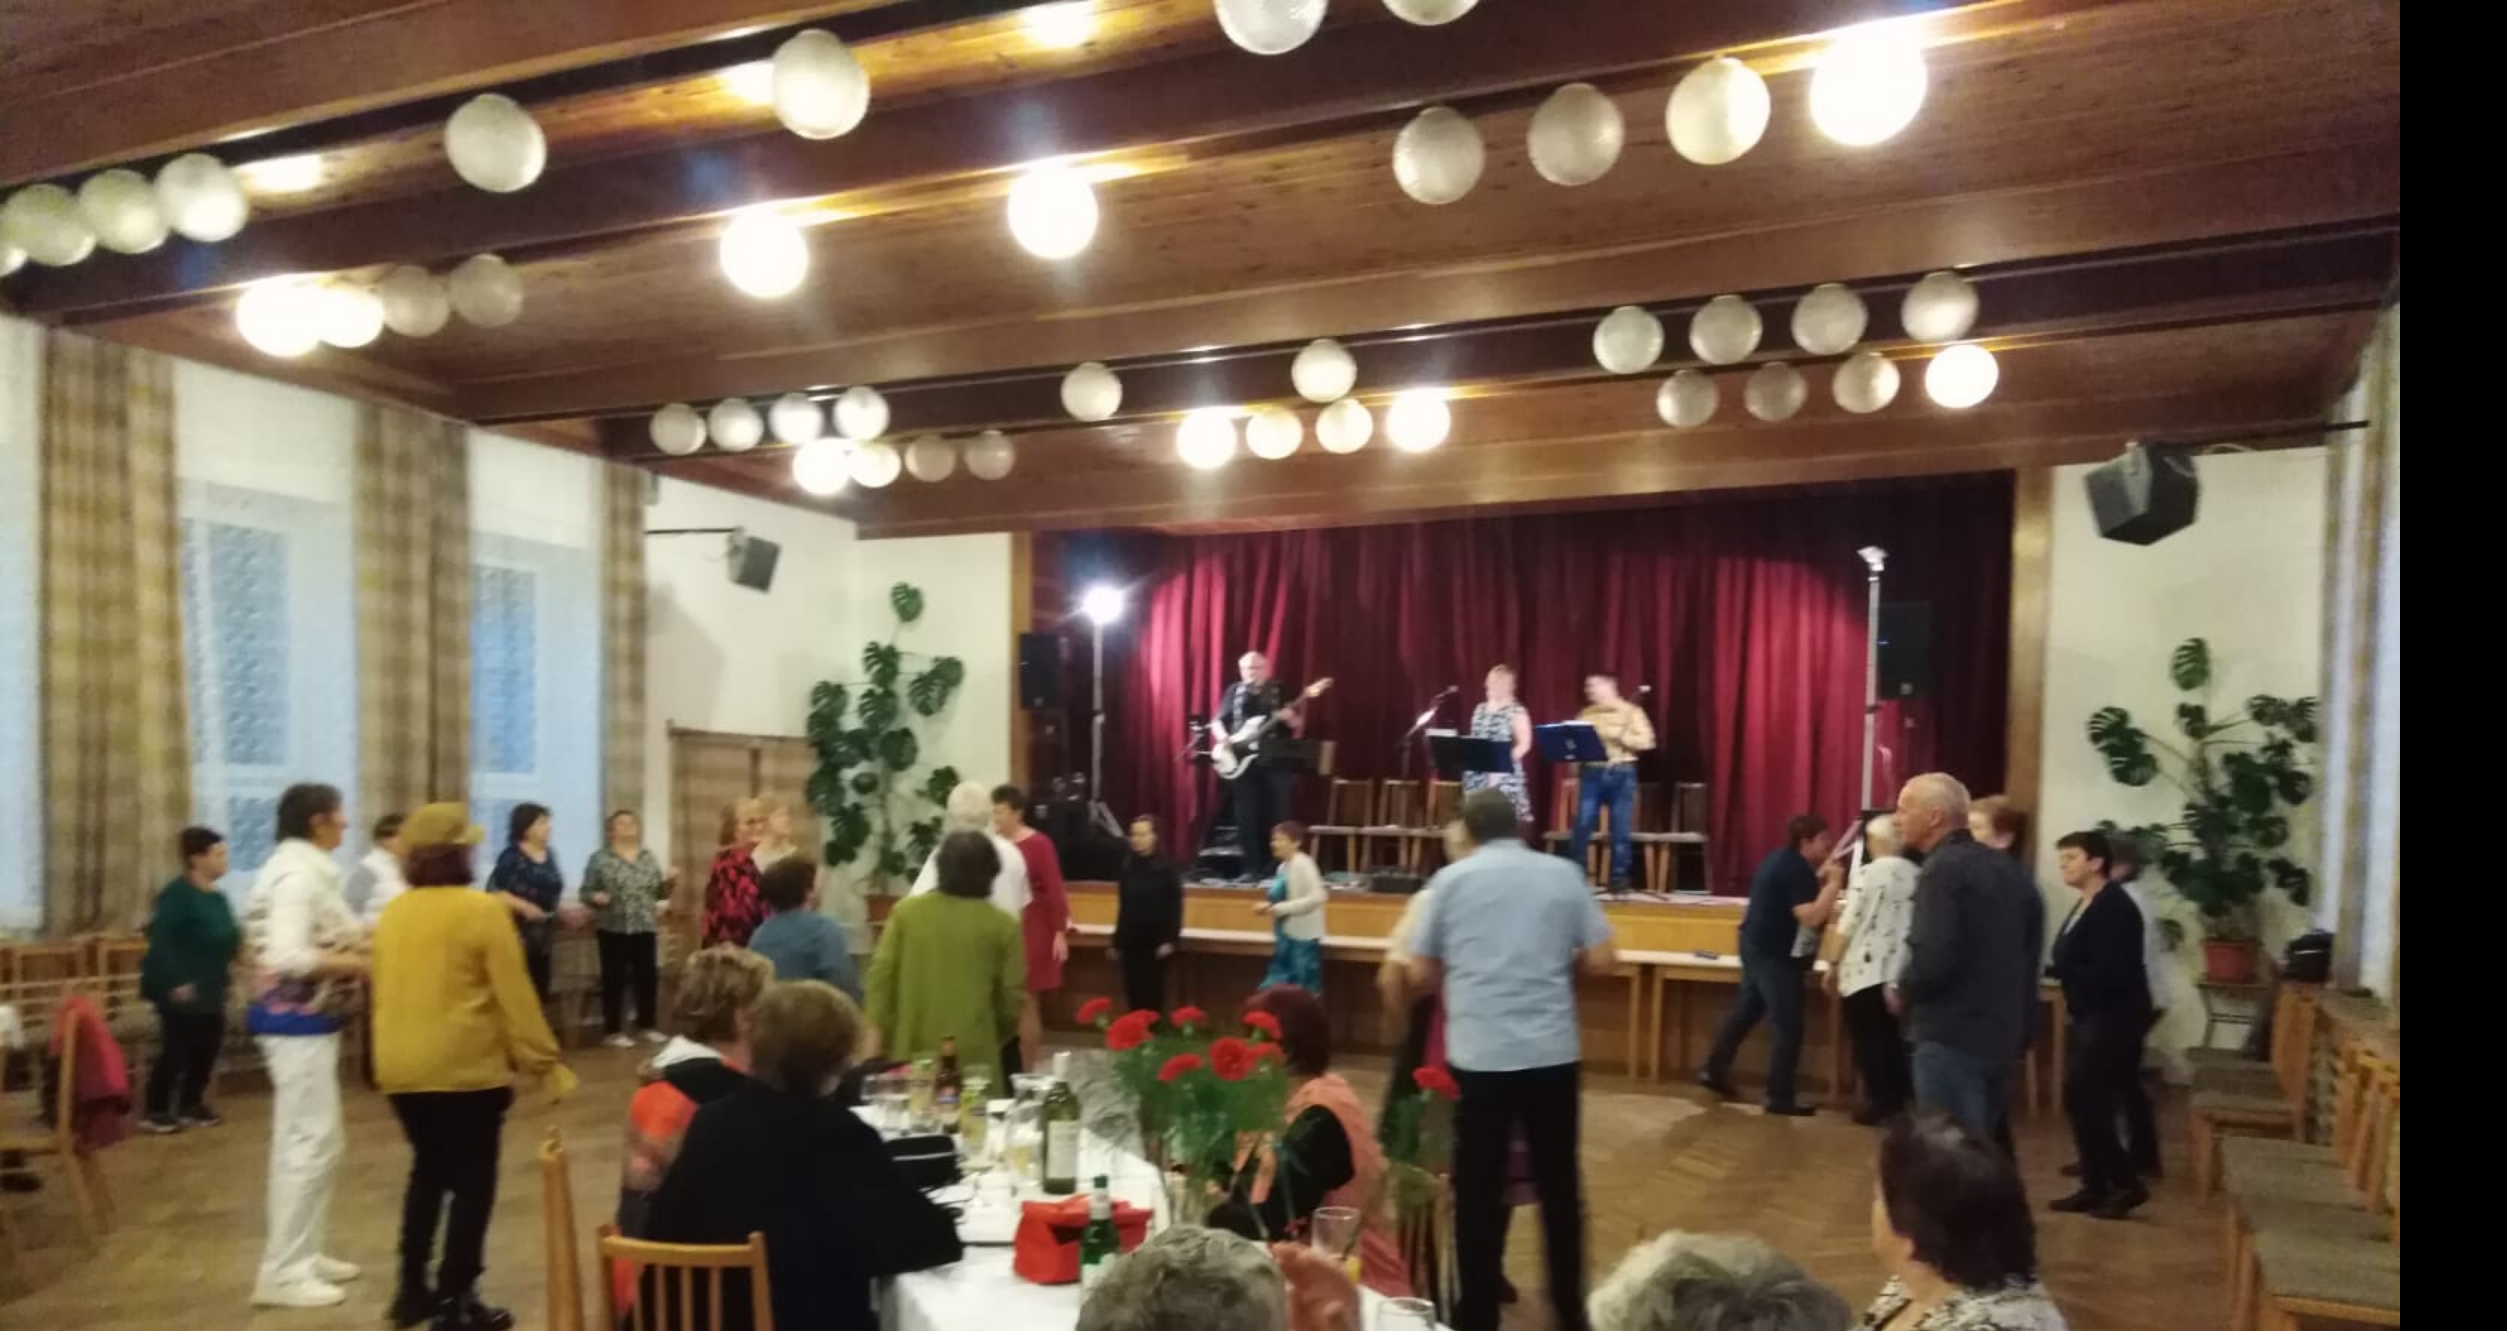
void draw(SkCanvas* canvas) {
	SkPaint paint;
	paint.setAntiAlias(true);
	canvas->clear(0xff000000);
	canvas->drawImageRect(SkImages::DeferredFromEncodedData(SkData::MakeFromFileName("img1.png")), SkRect::MakeXYWH(0, 0, 2400, 1331), SkSamplingOptions());
}
